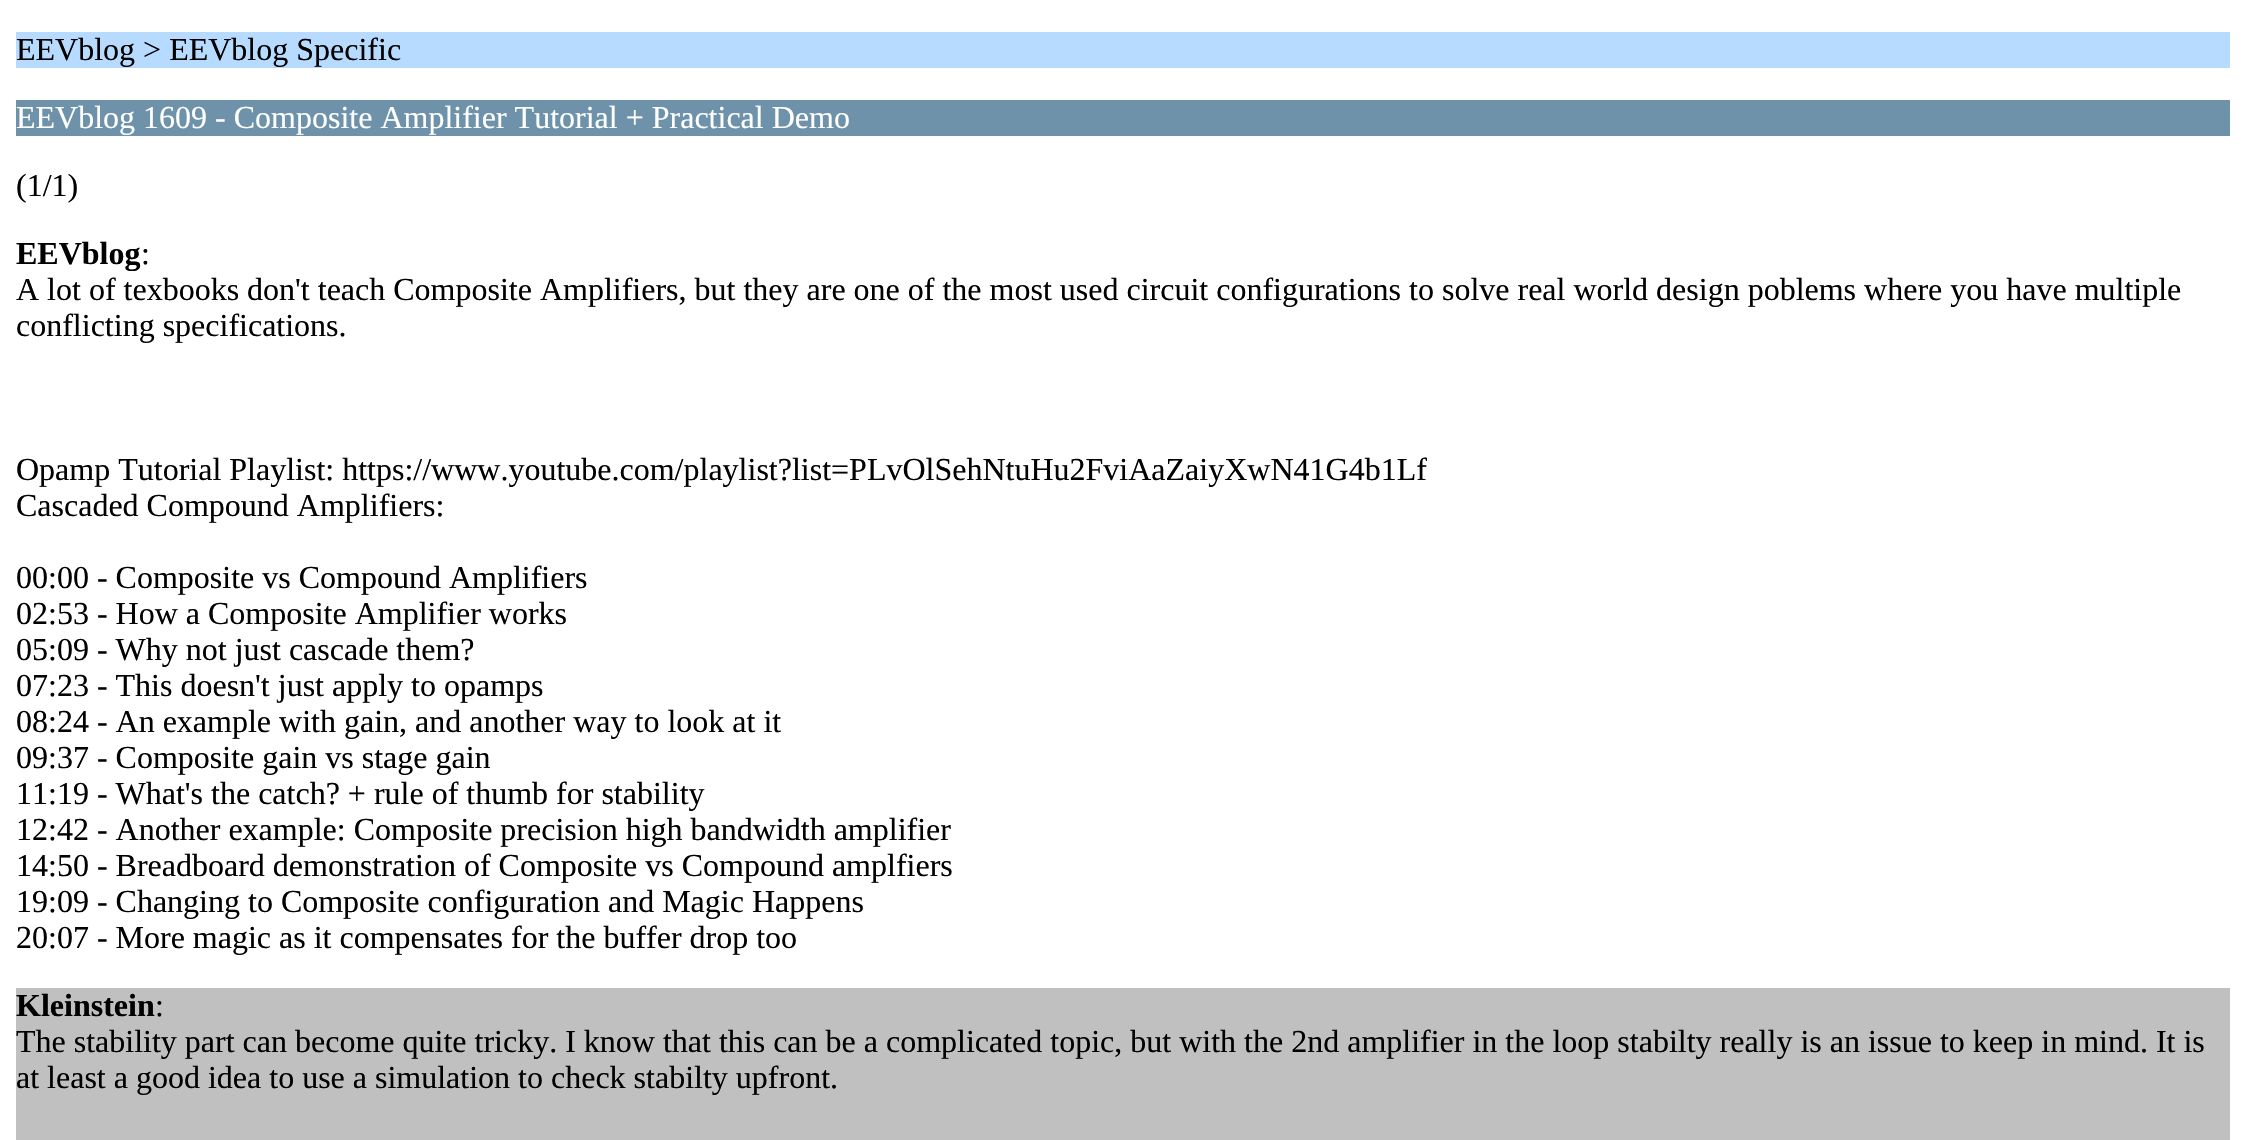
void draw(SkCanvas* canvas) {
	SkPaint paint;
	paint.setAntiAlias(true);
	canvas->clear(0xffffffff);
	paint.setColor(0xffb6dbff);
	canvas->drawRect(SkRect::MakeXYWH(16, 32, 2214, 36), paint);
	SkFont f1(fontMgr->matchFamilyStyle("Liberation Serif", SkFontStyle::Normal()), 32);
	f1.setSubpixel(true);
	paint.setColor(0xff000000);
	canvas->drawString("EEVblog > EEVblog Specific", 16, 60, f1, paint);
	paint.setColor(0xff6d92aa);
	canvas->drawRect(SkRect::MakeXYWH(16, 100, 2214, 36), paint);
	paint.setColor(0xffffffff);
	canvas->drawString("EEVblog 1609 - Composite Amplifier Tutorial + Practical Demo", 16, 128, f1, paint);
	paint.setColor(0xff000000);
	canvas->drawString("(1/1)", 16, 196, f1, paint);
	SkFont f2(fontMgr->matchFamilyStyle("Liberation Serif", SkFontStyle::Bold()), 32);
	f2.setSubpixel(true);
	canvas->drawString("EEVblog", 16, 264, f2, paint);
	canvas->drawString(":", 141, 264, f1, paint);
	canvas->drawString("A lot of texbooks don't teach Composite Amplifiers, but they are one of the most used circuit configurations to solve real world design poblems where you have multiple", 16, 300, f1, paint);
	canvas->drawString("conflicting specifications.", 16, 336, f1, paint);
	canvas->drawString("Opamp Tutorial Playlist: https://www.youtube.com/playlist?list=PLvOlSehNtuHu2FviAaZaiyXwN41G4b1Lf", 16, 480, f1, paint);
	canvas->drawString("Cascaded Compound Amplifiers:", 16, 516, f1, paint);
	canvas->drawString("00:00 - Composite vs Compound Amplifiers", 16, 588, f1, paint);
	canvas->drawString("02:53 - How a Composite Amplifier works", 16, 624, f1, paint);
	canvas->drawString("05:09 - Why not just cascade them?", 16, 660, f1, paint);
	canvas->drawString("07:23 - This doesn't just apply to opamps", 16, 696, f1, paint);
	canvas->drawString("08:24 - An example with gain, and another way to look at it", 16, 732, f1, paint);
	canvas->drawString("09:37 - Composite gain vs stage gain", 16, 768, f1, paint);
	canvas->drawString("11:19 - What's the catch? + rule of thumb for stability", 16, 804, f1, paint);
	canvas->drawString("12:42 - Another example: Composite precision high bandwidth amplifier", 16, 840, f1, paint);
	canvas->drawString("14:50 - Breadboard demonstration of Composite vs Compound amplfiers", 16, 876, f1, paint);
	canvas->drawString("19:09 - Changing to Composite configuration and Magic Happens", 16, 912, f1, paint);
	canvas->drawString("20:07 - More magic as it compensates for the buffer drop too", 16, 948, f1, paint);
	paint.setColor(0xffc0c0c0);
	canvas->drawRect(SkRect::MakeXYWH(16, 988, 2214, 152), paint);
	paint.setColor(0xff000000);
	canvas->drawString("Kleinstein", 16, 1016, f2, paint);
	canvas->drawString(":", 155, 1016, f1, paint);
	canvas->drawString("The stability part can become quite tricky. I know that this can be a complicated topic, but with the 2nd amplifier in the loop stabilty really is an issue to keep in mind. It is", 16, 1052, f1, paint);
	canvas->drawString("at least a good idea to use a simulation to check stabilty upfront.", 16, 1088, f1, paint);
}
